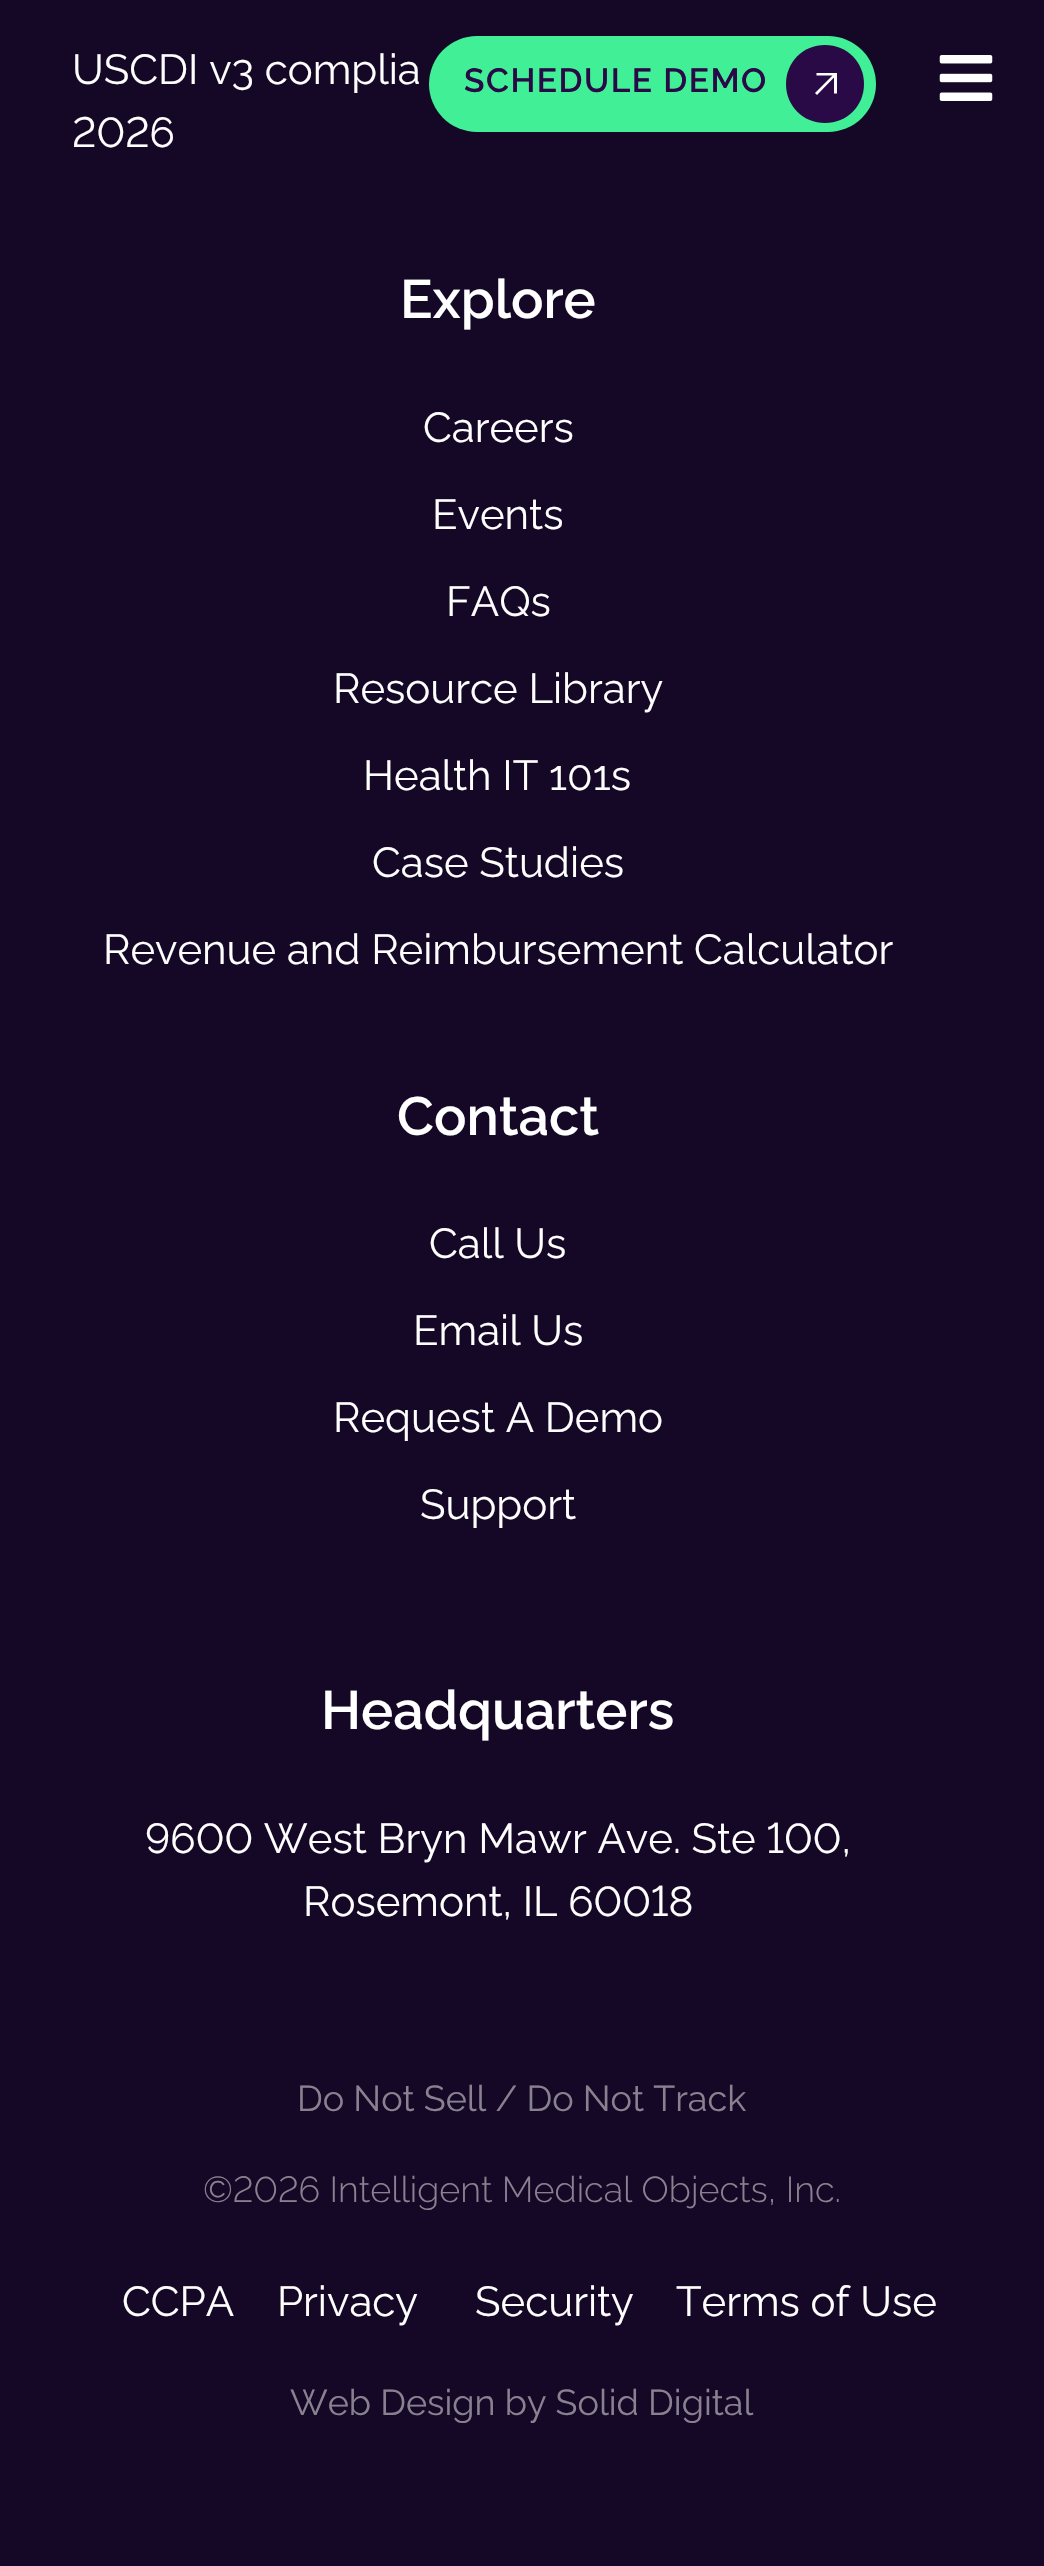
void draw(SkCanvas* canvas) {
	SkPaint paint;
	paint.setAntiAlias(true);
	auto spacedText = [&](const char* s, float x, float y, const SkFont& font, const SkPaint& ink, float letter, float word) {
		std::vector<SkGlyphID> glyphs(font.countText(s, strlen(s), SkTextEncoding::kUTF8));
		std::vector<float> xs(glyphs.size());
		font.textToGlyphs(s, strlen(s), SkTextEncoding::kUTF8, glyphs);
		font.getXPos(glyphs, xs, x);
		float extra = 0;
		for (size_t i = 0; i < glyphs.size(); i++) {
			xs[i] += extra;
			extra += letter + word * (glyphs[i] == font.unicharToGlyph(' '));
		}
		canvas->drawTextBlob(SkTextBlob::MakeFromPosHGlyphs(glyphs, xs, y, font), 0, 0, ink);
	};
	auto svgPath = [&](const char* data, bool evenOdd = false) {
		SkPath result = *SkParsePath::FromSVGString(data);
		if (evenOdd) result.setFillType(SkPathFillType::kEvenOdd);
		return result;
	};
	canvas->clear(0xff150826);
	SkFont f1(fontMgr->matchFamilyStyle("Raleway", SkFontStyle::Normal()), 42);
	f1.setSubpixel(true);
	paint.setColor(0xffffffff);
	canvas->drawString("USCDI v3 complia", 72, 84, f1, paint);
	SkFont f2(fontMgr->matchFamilyStyle("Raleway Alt", SkFontStyle::Normal()), 42);
	f2.setSubpixel(true);
	canvas->drawString("2026", 72, 147, f2, paint);
	SkFont f3(fontMgr->matchFamilyStyle("Raleway", SkFontStyle(600, SkFontStyle::kNormal_Width, SkFontStyle::kUpright_Slant)), 54);
	f3.setSubpixel(true);
	canvas->drawString("Explore", 400, 318, f3, paint);
	canvas->drawString("Careers", 423, 442, f1, paint);
	canvas->drawString("Events", 432, 529, f1, paint);
	canvas->drawString("FAQs", 446, 616, f1, paint);
	canvas->drawString("Resource Library", 333, 703, f1, paint);
	canvas->drawString("Health IT 101s", 363, 790, f1, paint);
	canvas->drawString("Case Studies", 372, 877, f1, paint);
	canvas->drawString("Revenue and Reimbursement Calculator", 103, 964, f1, paint);
	canvas->drawString("Contact", 397, 1135, f3, paint);
	canvas->drawString("Call Us", 429, 1258, f1, paint);
	canvas->drawString("Email Us", 413, 1345, f1, paint);
	canvas->drawString("Request A Demo", 333, 1432, f1, paint);
	canvas->drawString("Support", 420, 1519, f1, paint);
	canvas->drawString("Headquarters", 321, 1729, f3, paint);
	canvas->drawString("9600 West Bryn Mawr Ave. Ste 100,", 145, 1853, f2, paint);
	canvas->drawString("Rosemont, IL 60018", 303, 1916, f2, paint);
	SkFont f4(fontMgr->matchFamilyStyle("Raleway", SkFontStyle::Normal()), 36);
	f4.setSubpixel(true);
	paint.setColor(0xff888190);
	canvas->drawString("Do Not Sell / Do Not Track", 297, 2111, f4, paint);
	SkFont f5(fontMgr->matchFamilyStyle("Raleway Alt", SkFontStyle(300, SkFontStyle::kNormal_Width, SkFontStyle::kUpright_Slant)), 36);
	f5.setSubpixel(true);
	canvas->drawString("©2026 Intelligent Medical Objects, Inc.", 203, 2202, f5, paint);
	paint.setColor(0xffffffff);
	canvas->drawString("CCPA", 122, 2316, f1, paint);
	canvas->drawString("Privacy", 277, 2316, f1, paint);
	canvas->drawString("Security", 475, 2316, f1, paint);
	canvas->drawString("Terms of Use", 676, 2316, f1, paint);
	paint.setColor(0xff888190);
	canvas->drawString("Web Design by Solid Digital", 290, 2415, f4, paint);
	paint.setColor(0xff41f096);
	canvas->drawRoundRect(SkRect::MakeXYWH(429, 36, 447, 96), 48, 48, paint);
	SkFont f6(fontMgr->matchFamilyStyle("Raleway", SkFontStyle(600, SkFontStyle::kNormal_Width, SkFontStyle::kUpright_Slant)), 33.5);
	f6.setSubpixel(true);
	paint.setColor(0xff290a46);
	spacedText("SCHEDULE DEMO", 464, 92, f6, paint, 1.5, 0);
	canvas->drawPath(svgPath("M864 84C864 106 847 123 825 123C803 123 786 106 786 84C786 62 803 45 825 45C847 45 864 62 864 84Z"), paint);
	paint.setColor(0xffffffff);
	canvas->drawPath(svgPath("M817 95L815 93L832.5 75.5H816.5V73H837V93.5H834V77.5Z"), paint);
	canvas->drawImageRect(SkImages::DeferredFromEncodedData(SkData::MakeFromFileName("img1.png")), SkRect::MakeXYWH(939, 55, 54, 46), SkSamplingOptions());
}
